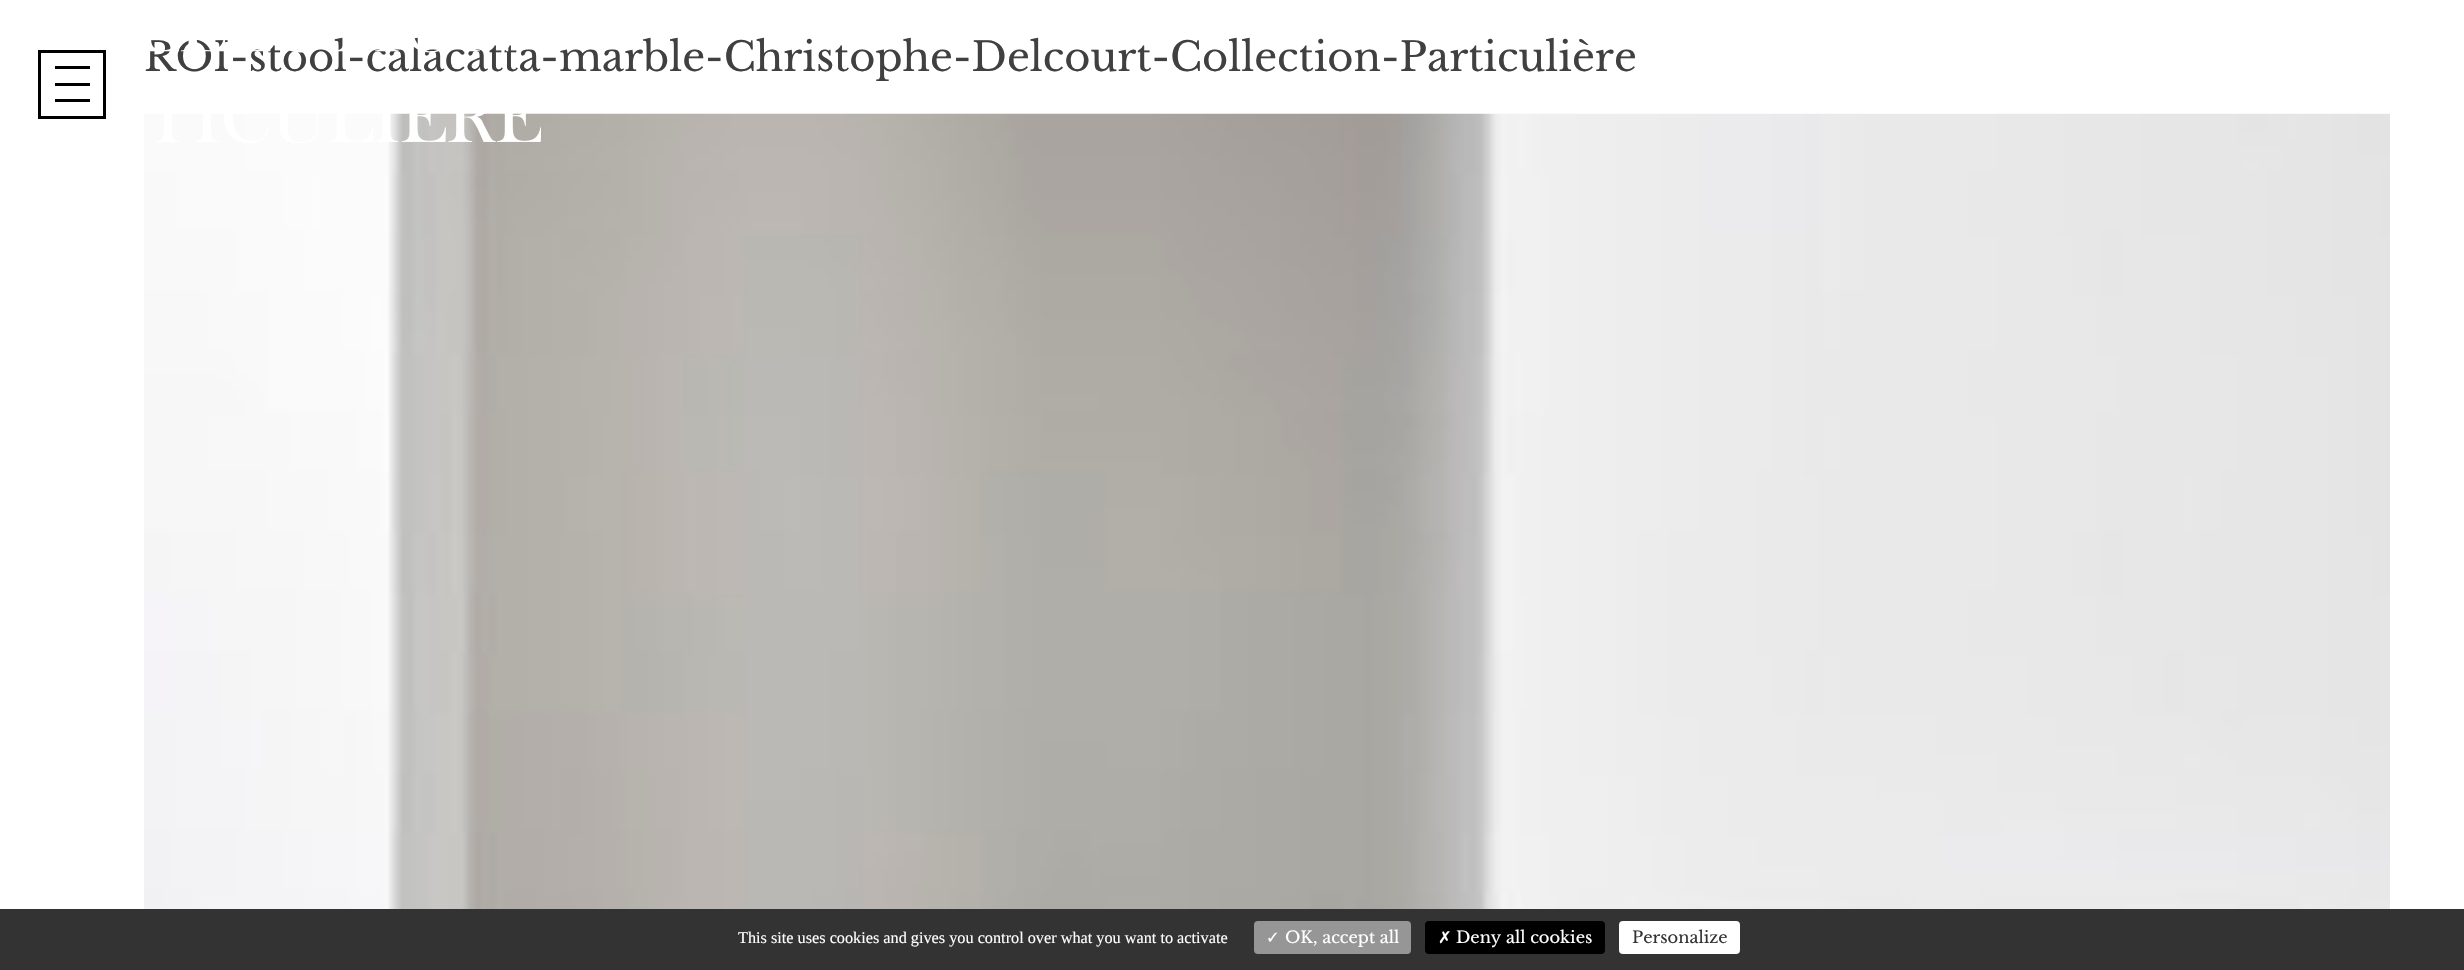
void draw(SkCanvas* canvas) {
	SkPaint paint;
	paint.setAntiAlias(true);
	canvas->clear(0xffffffff);
	SkFont f1(fontMgr->matchFamilyStyle("Libre Baskerville", SkFontStyle::Normal()), 40);
	f1.setSubpixel(true);
	paint.setColor(0xff404040);
	canvas->drawString("ROI-stool-calacatta-marble-Christophe-Delcourt-Collection-Particulière", 144, 71, f1, paint);
	canvas->drawImageRect(SkImages::DeferredFromEncodedData(SkData::MakeFromFileName("img1.png")), SkRect::MakeXYWH(144, 113, 2246, 796), SkSamplingOptions());
	paint.setStroke(true);
	paint.setStrokeWidth(3);
	paint.setColor(0xff000000);
	canvas->drawRect(SkRect::MakeXYWH(39.5, 51.5, 65, 66), paint);
	paint.setStroke(false);
	canvas->drawRect(SkRect::MakeXYWH(55, 66, 35, 3), paint);
	canvas->drawRect(SkRect::MakeXYWH(55, 83, 35, 3), paint);
	canvas->drawRect(SkRect::MakeXYWH(55, 99, 35, 3), paint);
	canvas->drawImageRect(SkImages::DeferredFromEncodedData(SkData::MakeFromFileName("img2.png")), SkRect::MakeXYWH(145, 38, 396, 105), SkSamplingOptions());
	paint.setColor(0xff333333);
	canvas->drawRect(SkRect::MakeXYWH(0, 909, 2464, 61), paint);
	SkFont f2(fontMgr->matchFamilyStyle("Liberation Serif", SkFontStyle::Normal()), 16.25);
	f2.setSubpixel(true);
	paint.setColor(0xffffffff);
	canvas->drawString("This site uses cookies and gives you control over what you want to activate", 738, 943, f2, paint);
	paint.setColor(0xff969696);
	canvas->drawRoundRect(SkRect::MakeXYWH(1254, 921, 157, 33), 4, 4, paint);
	SkFont f3(fontMgr->matchFamilyStyle("DejaVu Sans", SkFontStyle::Normal()), 16.25);
	f3.setSubpixel(true);
	paint.setColor(0xffffffff);
	canvas->drawString("✓", 1266, 943, f3, paint);
	SkFont f4(fontMgr->matchFamilyStyle("Libre Baskerville", SkFontStyle::Normal()), 16.25);
	f4.setSubpixel(true);
	canvas->drawString("OK, accept all", 1285, 943, f4, paint);
	paint.setColor(0xff000000);
	canvas->drawRoundRect(SkRect::MakeXYWH(1425, 921, 180, 33), 4, 4, paint);
	paint.setColor(0xffffffff);
	canvas->drawString("✗", 1438, 943, f3, paint);
	canvas->drawString("Deny all cookies", 1456, 943, f4, paint);
	canvas->drawRoundRect(SkRect::MakeXYWH(1619, 921, 121, 33), 4, 4, paint);
	paint.setColor(0xff333333);
	canvas->drawString("Personalize", 1632, 943, f4, paint);
}
